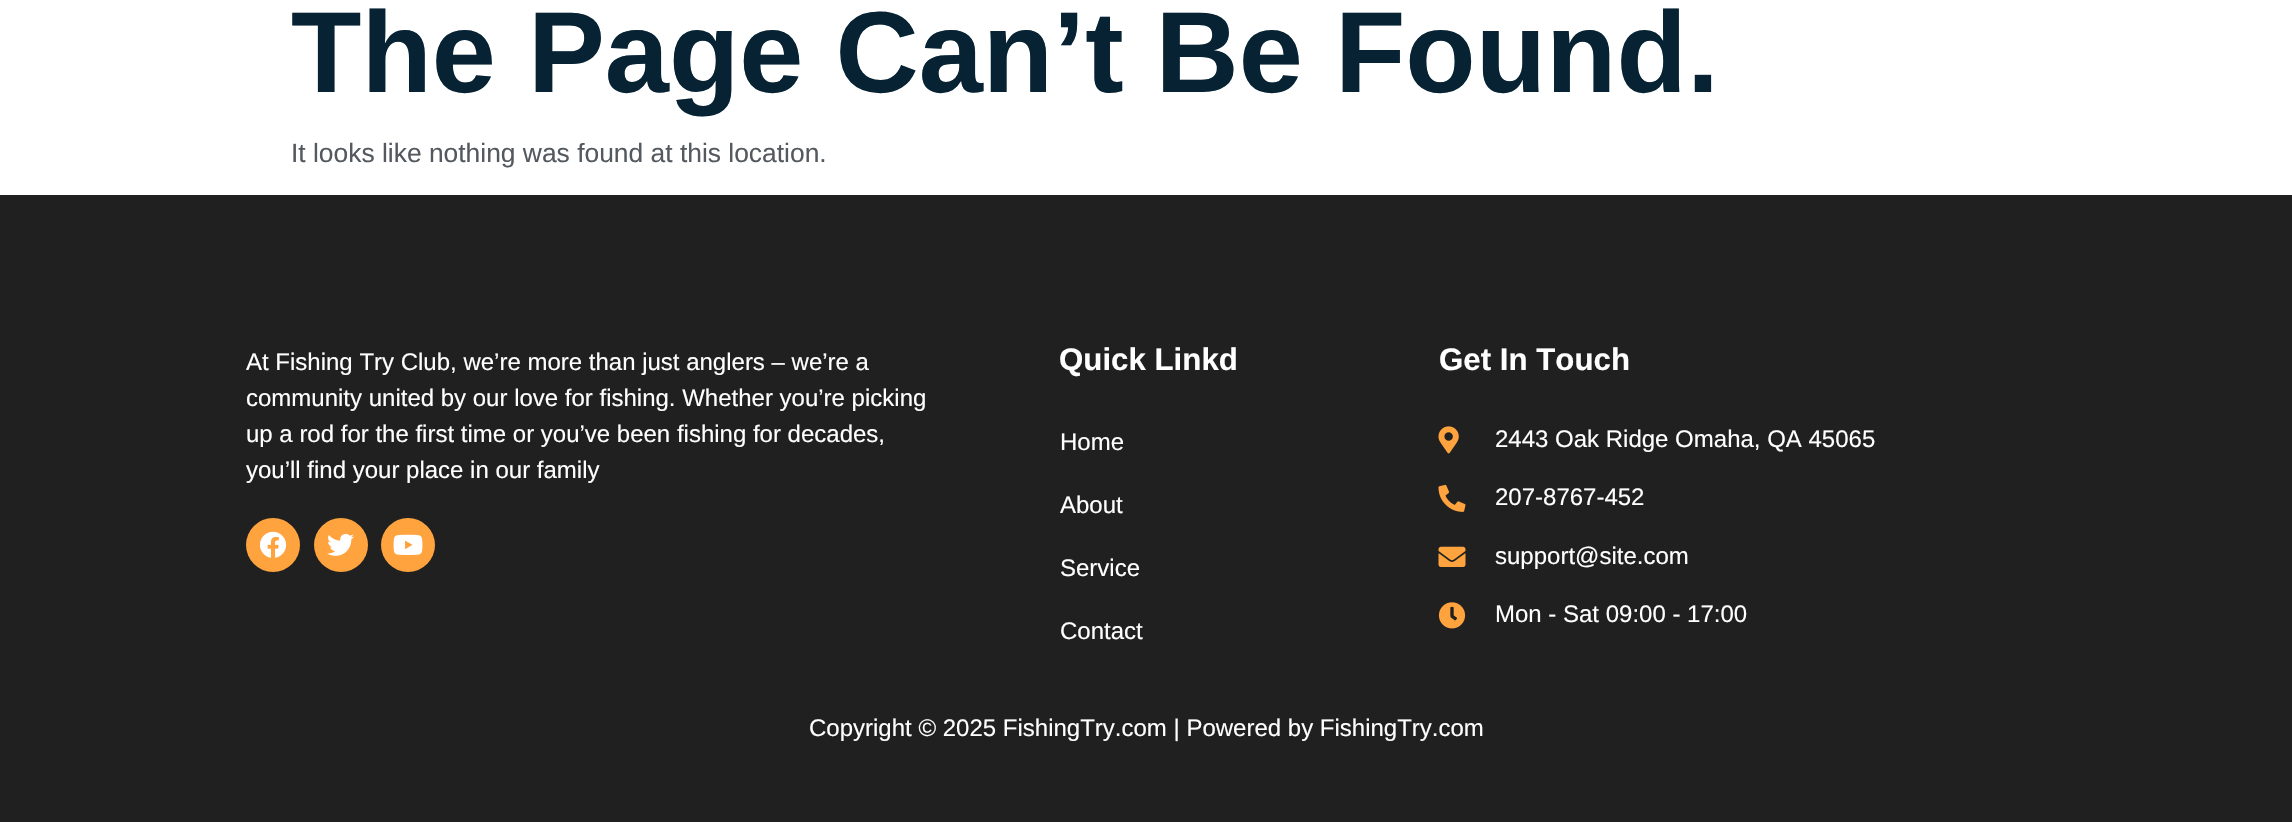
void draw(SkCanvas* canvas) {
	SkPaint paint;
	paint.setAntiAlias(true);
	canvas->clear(0xffffffff);
	SkFont f1(fontMgr->matchFamilyStyle("Liberation Sans", SkFontStyle::Bold()), 115.25);
	f1.setSubpixel(true);
	paint.setColor(0xff062233);
	canvas->drawString("The Page Can’t Be Found.", 291, 92, f1, paint);
	SkFont f2(fontMgr->matchFamilyStyle("Liberation Sans", SkFontStyle::Normal()), 26.4);
	f2.setSubpixel(true);
	paint.setColor(0xff54595f);
	canvas->drawString("It looks like nothing was found at this location.", 291, 162, f2, paint);
	paint.setColor(0xff202020);
	canvas->drawRect(SkRect::MakeXYWH(0, 195, 2292, 627), paint);
	SkFont f3(fontMgr->matchFamilyStyle("Liberation Sans", SkFontStyle::Normal()), 24);
	f3.setSubpixel(true);
	paint.setColor(0xffffffff);
	canvas->drawString("At Fishing Try Club, we’re more than just anglers – we’re a", 246, 370, f3, paint);
	canvas->drawString("community united by our love for fishing. Whether you’re picking", 246, 406, f3, paint);
	canvas->drawString("up a rod for the first time or you’ve been fishing for decades,", 246, 442, f3, paint);
	canvas->drawString("you’ll find your place in our family", 246, 478, f3, paint);
	paint.setColor(0xffffa33e);
	canvas->drawCircle(273, 545, 27, paint);
	canvas->drawImageRect(SkImages::DeferredFromEncodedData(SkData::MakeFromFileName("img1.png")), SkRect::MakeXYWH(259, 531, 28, 27), SkSamplingOptions());
	canvas->drawCircle(341, 545, 27, paint);
	canvas->drawImageRect(SkImages::DeferredFromEncodedData(SkData::MakeFromFileName("img2.png")), SkRect::MakeXYWH(327, 533, 27, 23), SkSamplingOptions());
	canvas->drawCircle(408, 545, 27, paint);
	canvas->drawImageRect(SkImages::DeferredFromEncodedData(SkData::MakeFromFileName("img3.png")), SkRect::MakeXYWH(393, 534, 30, 21), SkSamplingOptions());
	SkFont f4(fontMgr->matchFamilyStyle("Liberation Sans", SkFontStyle::Bold()), 31.25);
	f4.setSubpixel(true);
	paint.setColor(0xffffffff);
	canvas->drawString("Quick Linkd", 1059, 370, f4, paint);
	canvas->drawString("Home", 1060, 450, f3, paint);
	canvas->drawString("About", 1060, 513, f3, paint);
	canvas->drawString("Service", 1060, 576, f3, paint);
	canvas->drawString("Contact", 1060, 639, f3, paint);
	canvas->drawString("Get In Touch", 1439, 370, f4, paint);
	canvas->drawImageRect(SkImages::DeferredFromEncodedData(SkData::MakeFromFileName("img4.png")), SkRect::MakeXYWH(1438, 426, 21, 28), SkSamplingOptions());
	canvas->drawString("2443 Oak Ridge Omaha, QA 45065", 1495, 447, f3, paint);
	canvas->drawImageRect(SkImages::DeferredFromEncodedData(SkData::MakeFromFileName("img5.png")), SkRect::MakeXYWH(1438, 484, 28, 28), SkSamplingOptions());
	canvas->drawString("207-8767-452", 1495, 505, f3, paint);
	canvas->drawImageRect(SkImages::DeferredFromEncodedData(SkData::MakeFromFileName("img6.png")), SkRect::MakeXYWH(1438, 546, 28, 21), SkSamplingOptions());
	canvas->drawString("support@site.com", 1495, 564, f3, paint);
	canvas->drawImageRect(SkImages::DeferredFromEncodedData(SkData::MakeFromFileName("img7.png")), SkRect::MakeXYWH(1438, 602, 28, 27), SkSamplingOptions());
	canvas->drawString("Mon - Sat 09:00 - 17:00", 1495, 622, f3, paint);
	canvas->drawString("Copyright © 2025 FishingTry.com | Powered by FishingTry.com", 809, 736, f3, paint);
}
